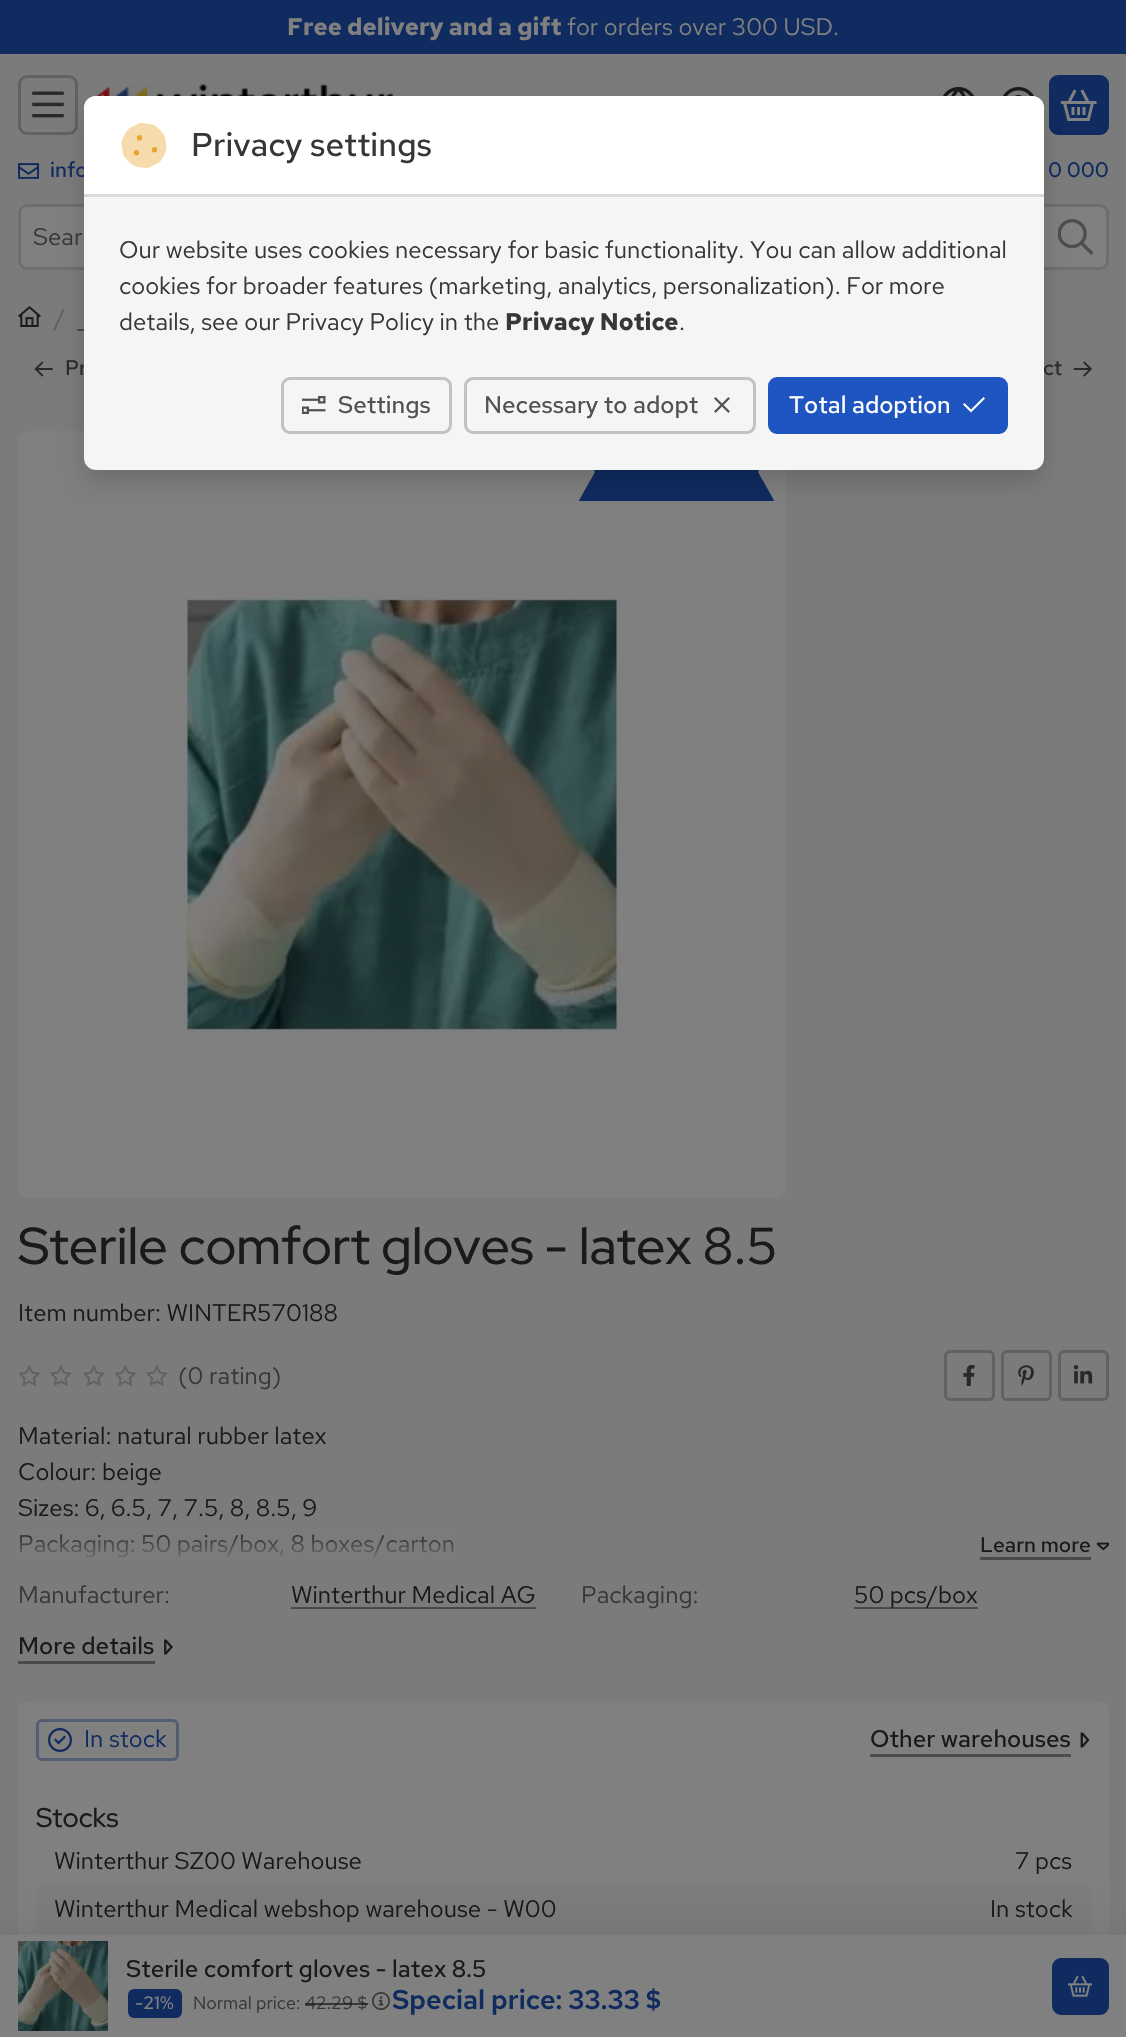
void draw(SkCanvas* canvas) {
	SkPaint paint;
	paint.setAntiAlias(true);
	auto svgPath = [&](const char* data, bool evenOdd = false) {
		SkPath result = *SkParsePath::FromSVGString(data);
		if (evenOdd) result.setFillType(SkPathFillType::kEvenOdd);
		return result;
	};
	canvas->clear(0xff7b7b7b);
	paint.setColor(0xff102b60);
	canvas->drawRect(SkRect::MakeXYWH(0, 0, 1126, 54), paint);
	SkFont f1(fontMgr->matchFamilyStyle("Red Hat Text", SkFontStyle::Bold()), 24);
	f1.setSubpixel(true);
	paint.setColor(0xff808080);
	canvas->drawString("Free delivery and a gift", 287, 35, f1, paint);
	SkFont f2(fontMgr->matchFamilyStyle("Red Hat Text", SkFontStyle::Normal()), 24);
	f2.setSubpixel(true);
	canvas->drawString("for orders over 300 USD.", 567, 35, f2, paint);
	paint.setStroke(true);
	paint.setStrokeWidth(3);
	paint.setColor(0xff616161);
	canvas->drawRoundRect(SkRect::MakeXYWH(19.5, 76.5, 57, 57), 7.5, 7.5, paint);
	canvas->drawImageRect(SkImages::DeferredFromEncodedData(SkData::MakeFromFileName("img4.png")), SkRect::MakeXYWH(32, 91, 32, 27), SkSamplingOptions());
	canvas->drawImageRect(SkImages::DeferredFromEncodedData(SkData::MakeFromFileName("img5.png")), SkRect::MakeXYWH(96, 83, 298, 13), SkSamplingOptions());
	canvas->drawImageRect(SkImages::DeferredFromEncodedData(SkData::MakeFromFileName("img6.png")), SkRect::MakeXYWH(943, 87, 31, 9), SkSamplingOptions());
	canvas->drawImageRect(SkImages::DeferredFromEncodedData(SkData::MakeFromFileName("img7.png")), SkRect::MakeXYWH(1003, 87, 32, 10), SkSamplingOptions());
	paint.setStroke(false);
	paint.setColor(0xff102b60);
	canvas->drawRoundRect(SkRect::MakeXYWH(1050.5, 76.5, 57, 57), 7.5, 7.5, paint);
	paint.setStroke(true);
	canvas->drawRoundRect(SkRect::MakeXYWH(1050.5, 76.5, 57, 57), 7.5, 7.5, paint);
	canvas->drawImageRect(SkImages::DeferredFromEncodedData(SkData::MakeFromFileName("img8.png")), SkRect::MakeXYWH(1061, 89, 36, 32), SkSamplingOptions());
	paint.setStroke(false);
	paint.setColor(0xff808080);
	canvas->drawRoundRect(SkRect::MakeXYWH(19.5, 205.5, 1088, 63), 7.5, 7.5, paint);
	paint.setStroke(true);
	paint.setColor(0xff6e6e6e);
	canvas->drawRoundRect(SkRect::MakeXYWH(19.5, 205.5, 1088, 63), 7.5, 7.5, paint);
	canvas->drawImageRect(SkImages::DeferredFromEncodedData(SkData::MakeFromFileName("img10.png")), SkRect::MakeXYWH(1058, 219, 36, 36), SkSamplingOptions());
	paint.setStroke(false);
	paint.setColor(0xff4a4a4a);
	canvas->drawRect(SkRect::MakeXYWH(77, 329, 7, 2), paint);
	canvas->drawImageRect(SkImages::DeferredFromEncodedData(SkData::MakeFromFileName("img12.png")), SkRect::MakeXYWH(34, 361, 19, 16), SkSamplingOptions());
	canvas->drawImageRect(SkImages::DeferredFromEncodedData(SkData::MakeFromFileName("img13.png")), SkRect::MakeXYWH(1073, 361, 19, 16), SkSamplingOptions());
	canvas->drawImageRect(SkImages::DeferredFromEncodedData(SkData::MakeFromFileName("img14.png")), SkRect::MakeXYWH(18, 431, 768, 767), SkSamplingOptions());
	paint.setColor(0xff102b60);
	canvas->drawPath(svgPath("M579 444C579 443 579 443 580 442H773C775 443 773 445 771 448L758 472L771 495C773 499 775 501 773 501H580C578 501 580 499 582 495L595 472Z"), paint);
	paint.setColor(0x26000000);
	paint.setMaskFilter(SkMaskFilter::MakeBlur(kNormal_SkBlurStyle, 12));
	canvas->drawRoundRect(SkRect::MakeXYWH(84, 108, 960, 374), 12, 12, paint);
	paint.setMaskFilter(nullptr);
	SkFont f3(fontMgr->matchFamilyStyle("Red Hat Text", SkFontStyle(500, SkFontStyle::kNormal_Width, SkFontStyle::kUpright_Slant)), 21);
	f3.setSubpixel(true);
	paint.setColor(0xff102b60);
	canvas->drawString("info", 50, 177, f3, paint);
	paint.setColor(0xff292929);
	canvas->drawString("Pr", 65, 375, f3, paint);
	canvas->drawString("ct", 1043, 375, f3, paint);
	paint.setColor(0xfff5f5f5);
	canvas->drawRoundRect(SkRect::MakeXYWH(84, 96, 960, 374), 12, 12, paint);
	paint.setColor(0xffffffff);
	canvas->drawPath(svgPath("M96 96H1032C1038.5 96 1044 101.5 1044 108V197H84V108C84 101.5 89.5 96 96 96Z"), paint);
	paint.setColor(0xffdbdbdb);
	canvas->drawRect(SkRect::MakeXYWH(84, 194, 960, 3), paint);
	canvas->drawImageRect(SkImages::DeferredFromEncodedData(SkData::MakeFromFileName("img1.png")), SkRect::MakeXYWH(121, 123, 46, 45), SkSamplingOptions());
	SkFont f4(fontMgr->matchFamilyStyle("Red Hat Text", SkFontStyle(500, SkFontStyle::kNormal_Width, SkFontStyle::kUpright_Slant)), 33);
	f4.setSubpixel(true);
	paint.setColor(0xff373737);
	canvas->drawString("Privacy settings", 191, 156, f4, paint);
	canvas->drawString("Our website uses cookies necessary for basic functionality. You can allow additional", 119, 258, f2, paint);
	canvas->drawString("cookies for broader features (marketing, analytics, personalization). For more", 119, 294, f2, paint);
	canvas->drawString("details, see our Privacy Policy in the", 119, 330, f2, paint);
	canvas->drawString("Privacy Notice", 505, 330, f1, paint);
	canvas->drawString(".", 679, 330, f2, paint);
	paint.setStroke(true);
	paint.setColor(0xffc2c2c2);
	canvas->drawRoundRect(SkRect::MakeXYWH(282.5, 378.5, 168, 54), 7.5, 7.5, paint);
	canvas->drawImageRect(SkImages::DeferredFromEncodedData(SkData::MakeFromFileName("img2.png")), SkRect::MakeXYWH(302, 396, 24, 18), SkSamplingOptions());
	SkFont f5(fontMgr->matchFamilyStyle("Red Hat Text", SkFontStyle(500, SkFontStyle::kNormal_Width, SkFontStyle::kUpright_Slant)), 24);
	f5.setSubpixel(true);
	paint.setStroke(false);
	paint.setColor(0xff525252);
	canvas->drawString("Settings", 338, 413, f5, paint);
	paint.setStroke(true);
	paint.setColor(0xffc2c2c2);
	canvas->drawRoundRect(SkRect::MakeXYWH(465.5, 378.5, 289, 54), 7.5, 7.5, paint);
	paint.setStroke(false);
	paint.setColor(0xff525252);
	canvas->drawString("Necessary to adopt", 484, 413, f5, paint);
	canvas->drawImageRect(SkImages::DeferredFromEncodedData(SkData::MakeFromFileName("img3.png")), SkRect::MakeXYWH(714, 397, 16, 16), SkSamplingOptions());
	paint.setColor(0xff1f55c0);
	canvas->drawRoundRect(SkRect::MakeXYWH(769.5, 378.5, 237, 54), 7.5, 7.5, paint);
	paint.setStroke(true);
	canvas->drawRoundRect(SkRect::MakeXYWH(769.5, 378.5, 237, 54), 7.5, 7.5, paint);
	paint.setStroke(false);
	paint.setColor(0xffffffff);
	canvas->drawString("Total adoption", 789, 413, f5, paint);
	canvas->drawPath(svgPath("M985 398.5L971 412.5L963 404.5L964.5 403L971 409.5L983.5 397Z"), paint);
	canvas->drawImageRect(SkImages::DeferredFromEncodedData(SkData::MakeFromFileName("img9.png")), SkRect::MakeXYWH(18, 163, 21, 16), SkSamplingOptions());
	paint.setColor(0xff102b60);
	canvas->drawString("0 000", 1048, 177, f3, paint);
	paint.setColor(0xff373737);
	canvas->drawString("Sear", 33, 245, f2, paint);
	canvas->drawImageRect(SkImages::DeferredFromEncodedData(SkData::MakeFromFileName("img11.png")), SkRect::MakeXYWH(18, 306, 23, 21), SkSamplingOptions());
	paint.setColor(0xff616161);
	canvas->drawString("/", 54, 326, f5, paint);
	SkFont f6(fontMgr->matchFamilyStyle("Red Hat Display", SkFontStyle(500, SkFontStyle::kNormal_Width, SkFontStyle::kUpright_Slant)), 51.75);
	f6.setSubpixel(true);
	paint.setColor(0xff1a1a1a);
	canvas->drawString("Sterile comfort gloves - latex 8.5", 18, 1264, f6, paint);
	canvas->drawString("Item number: WINTER570188", 18, 1321, f2, paint);
	canvas->drawImageRect(SkImages::DeferredFromEncodedData(SkData::MakeFromFileName("img15.png")), SkRect::MakeXYWH(18, 1365, 23, 21), SkSamplingOptions());
	canvas->drawImageRect(SkImages::DeferredFromEncodedData(SkData::MakeFromFileName("img16.png")), SkRect::MakeXYWH(50, 1365, 22, 21), SkSamplingOptions());
	canvas->drawImageRect(SkImages::DeferredFromEncodedData(SkData::MakeFromFileName("img16.png")), SkRect::MakeXYWH(83, 1365, 22, 21), SkSamplingOptions());
	canvas->drawImageRect(SkImages::DeferredFromEncodedData(SkData::MakeFromFileName("img15.png")), SkRect::MakeXYWH(114, 1365, 23, 21), SkSamplingOptions());
	canvas->drawImageRect(SkImages::DeferredFromEncodedData(SkData::MakeFromFileName("img16.png")), SkRect::MakeXYWH(146, 1365, 22, 21), SkSamplingOptions());
	paint.setColor(0xff373737);
	canvas->drawString("(0 rating)", 178, 1384, f2, paint);
	paint.setStroke(true);
	paint.setColor(0xff616161);
	canvas->drawRoundRect(SkRect::MakeXYWH(945.5, 1351.5, 48, 48), 4.5, 4.5, paint);
	canvas->drawImageRect(SkImages::DeferredFromEncodedData(SkData::MakeFromFileName("img17.png")), SkRect::MakeXYWH(963, 1365, 12, 21), SkSamplingOptions());
	canvas->drawRoundRect(SkRect::MakeXYWH(1002.5, 1351.5, 48, 48), 4.5, 4.5, paint);
	canvas->drawImageRect(SkImages::DeferredFromEncodedData(SkData::MakeFromFileName("img18.png")), SkRect::MakeXYWH(1018, 1365, 16, 21), SkSamplingOptions());
	canvas->drawRoundRect(SkRect::MakeXYWH(1059.5, 1351.5, 48, 48), 4.5, 4.5, paint);
	canvas->drawImageRect(SkImages::DeferredFromEncodedData(SkData::MakeFromFileName("img19.png")), SkRect::MakeXYWH(1073, 1365, 20, 19), SkSamplingOptions());
	paint.setStroke(false);
	paint.setColor(0xff1a1a1a);
	canvas->drawString("Material: natural rubber latex", 18, 1444, f2, paint);
	canvas->drawString("Colour: beige", 18, 1480, f2, paint);
	canvas->drawString("Sizes: 6, 6.5, 7, 7.5, 8, 8.5, 9", 18, 1516, f2, paint);
	canvas->drawString("Packaging: 50 pairs/box, 8 boxes/carton", 18, 1552, f2, paint);
	{
		const SkColor colors[] = {0x007b7b7b, 0xff7b7b7b};
		const float stops[] = {0, 1};
		const SkPoint ends[] = {{563, 1527}, {563, 1563}};
		paint.setShader(SkGradientShader::MakeLinear(ends, colors, stops, 2, SkTileMode::kClamp));
		paint.setAlpha(255);
	}
	canvas->drawRect(SkRect::MakeXYWH(20, 1534, 434, 24), paint);
	paint.setShader(nullptr);
	paint.setColor(0xff4a4a4a);
	canvas->drawRect(SkRect::MakeXYWH(980, 1557, 111, 3), paint);
	paint.setColor(0xff1a1a1a);
	canvas->drawString("Learn more", 980, 1552, f3, paint);
	canvas->drawImageRect(SkImages::DeferredFromEncodedData(SkData::MakeFromFileName("img20.png")), SkRect::MakeXYWH(1096, 1542, 13, 9), SkSamplingOptions());
	paint.setColor(0xff373737);
	canvas->drawString("Manufacturer:", 18, 1603, f2, paint);
	paint.setColor(0xff1a1a1a);
	canvas->drawString("Winterthur Medical AG", 291, 1603, f2, paint);
	paint.setColor(0xff4a4a4a);
	canvas->drawRect(SkRect::MakeXYWH(291, 1607, 245, 2), paint);
	paint.setColor(0xff373737);
	canvas->drawString("Packaging:", 581, 1603, f2, paint);
	paint.setColor(0xff4a4a4a);
	canvas->drawRect(SkRect::MakeXYWH(854, 1607, 124, 2), paint);
	paint.setColor(0xff1a1a1a);
	canvas->drawString("50 pcs/box", 854, 1603, f2, paint);
	canvas->drawString("More details", 18, 1654, f5, paint);
	paint.setColor(0xff4a4a4a);
	canvas->drawRect(SkRect::MakeXYWH(18, 1661, 137, 3), paint);
	canvas->drawImageRect(SkImages::DeferredFromEncodedData(SkData::MakeFromFileName("img21.png")), SkRect::MakeXYWH(164, 1639, 9, 16), SkSamplingOptions());
	paint.setColor(0xff808080);
	canvas->drawRoundRect(SkRect::MakeXYWH(18, 1701, 1091, 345), 9, 9, paint);
	paint.setStroke(true);
	paint.setColor(0xff535e73);
	canvas->drawRoundRect(SkRect::MakeXYWH(37.5, 1720.5, 140, 39), 4.5, 4.5, paint);
	canvas->drawImageRect(SkImages::DeferredFromEncodedData(SkData::MakeFromFileName("img22.png")), SkRect::MakeXYWH(48, 1728, 24, 24), SkSamplingOptions());
	paint.setStroke(false);
	paint.setColor(0xff102b60);
	canvas->drawString("In stock", 84, 1747, f2, paint);
	paint.setColor(0xff1a1a1a);
	canvas->drawString("Other warehouses", 870, 1747, f5, paint);
	paint.setColor(0xff4d4d4d);
	canvas->drawRect(SkRect::MakeXYWH(870, 1754, 201, 3), paint);
	canvas->drawImageRect(SkImages::DeferredFromEncodedData(SkData::MakeFromFileName("img23.png")), SkRect::MakeXYWH(1080, 1732, 10, 16), SkSamplingOptions());
	SkFont f7(fontMgr->matchFamilyStyle("Red Hat Display", SkFontStyle(500, SkFontStyle::kNormal_Width, SkFontStyle::kUpright_Slant)), 27);
	f7.setSubpixel(true);
	paint.setColor(0xff1a1a1a);
	canvas->drawString("Stocks", 36, 1827, f7, paint);
	canvas->drawString("Winterthur SZ00 Warehouse", 54, 1869, f2, paint);
	canvas->drawString("7 pcs", 1015, 1869, f2, paint);
	paint.setColor(0xff7c7c7c);
	canvas->drawRoundRect(SkRect::MakeXYWH(36, 1886, 1055, 48), 9, 9, paint);
	paint.setColor(0xff1a1a1a);
	canvas->drawString("Winterthur Medical webshop warehouse - W00", 54, 1917, f2, paint);
	canvas->drawString("In stock", 990, 1917, f2, paint);
	paint.setColor(0x1a000000);
	paint.setMaskFilter(SkMaskFilter::MakeBlur(kNormal_SkBlurStyle, 22.5));
	canvas->drawRect(SkRect::MakeXYWH(0, 1935, 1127, 102), paint);
	paint.setMaskFilter(nullptr);
	paint.setColor(0xff808080);
	canvas->drawRect(SkRect::MakeXYWH(0, 1935, 1126, 102), paint);
	canvas->drawImageRect(SkImages::DeferredFromEncodedData(SkData::MakeFromFileName("img24.png")), SkRect::MakeXYWH(18, 1941, 90, 90), SkSamplingOptions());
	paint.setColor(0xff1a1a1a);
	canvas->drawString("Sterile comfort gloves - latex 8.5", 126, 1977, f5, paint);
	paint.setColor(0xff102b60);
	canvas->drawRoundRect(SkRect::MakeXYWH(129.5, 1990.5, 51, 26), 4.5, 4.5, paint);
	paint.setStroke(true);
	canvas->drawRoundRect(SkRect::MakeXYWH(129.5, 1990.5, 51, 26), 4.5, 4.5, paint);
	SkFont f8(fontMgr->matchFamilyStyle("Red Hat Text", SkFontStyle(500, SkFontStyle::kNormal_Width, SkFontStyle::kUpright_Slant)), 18);
	f8.setSubpixel(true);
	paint.setStroke(false);
	paint.setColor(0xff808080);
	canvas->drawString("-21%", 135, 2009, f8, paint);
	SkFont f9(fontMgr->matchFamilyStyle("Red Hat Text", SkFontStyle::Normal()), 18);
	f9.setSubpixel(true);
	paint.setColor(0xff373737);
	canvas->drawString("Normal price: 42.29 $", 193, 2009, f9, paint);
	canvas->drawImageRect(SkImages::DeferredFromEncodedData(SkData::MakeFromFileName("img25.png")), SkRect::MakeXYWH(372, 1992, 18, 18), SkSamplingOptions());
	paint.setColor(0xb31a1a1a);
	canvas->drawRect(SkRect::MakeXYWH(305, 2003, 48, 2), paint);
	canvas->drawRect(SkRect::MakeXYWH(353, 2003, 15, 2), paint);
	SkFont f10(fontMgr->matchFamilyStyle("Red Hat Text", SkFontStyle(600, SkFontStyle::kNormal_Width, SkFontStyle::kUpright_Slant)), 27);
	f10.setSubpixel(true);
	paint.setColor(0xff102b60);
	canvas->drawString("Special price: 33.33 $", 392, 2009, f10, paint);
	canvas->drawRoundRect(SkRect::MakeXYWH(1053.5, 1959.5, 54, 54), 7.5, 7.5, paint);
	paint.setStroke(true);
	canvas->drawRoundRect(SkRect::MakeXYWH(1053.5, 1959.5, 54, 54), 7.5, 7.5, paint);
	canvas->drawImageRect(SkImages::DeferredFromEncodedData(SkData::MakeFromFileName("img26.png")), SkRect::MakeXYWH(1068, 1975, 24, 22), SkSamplingOptions());
}
